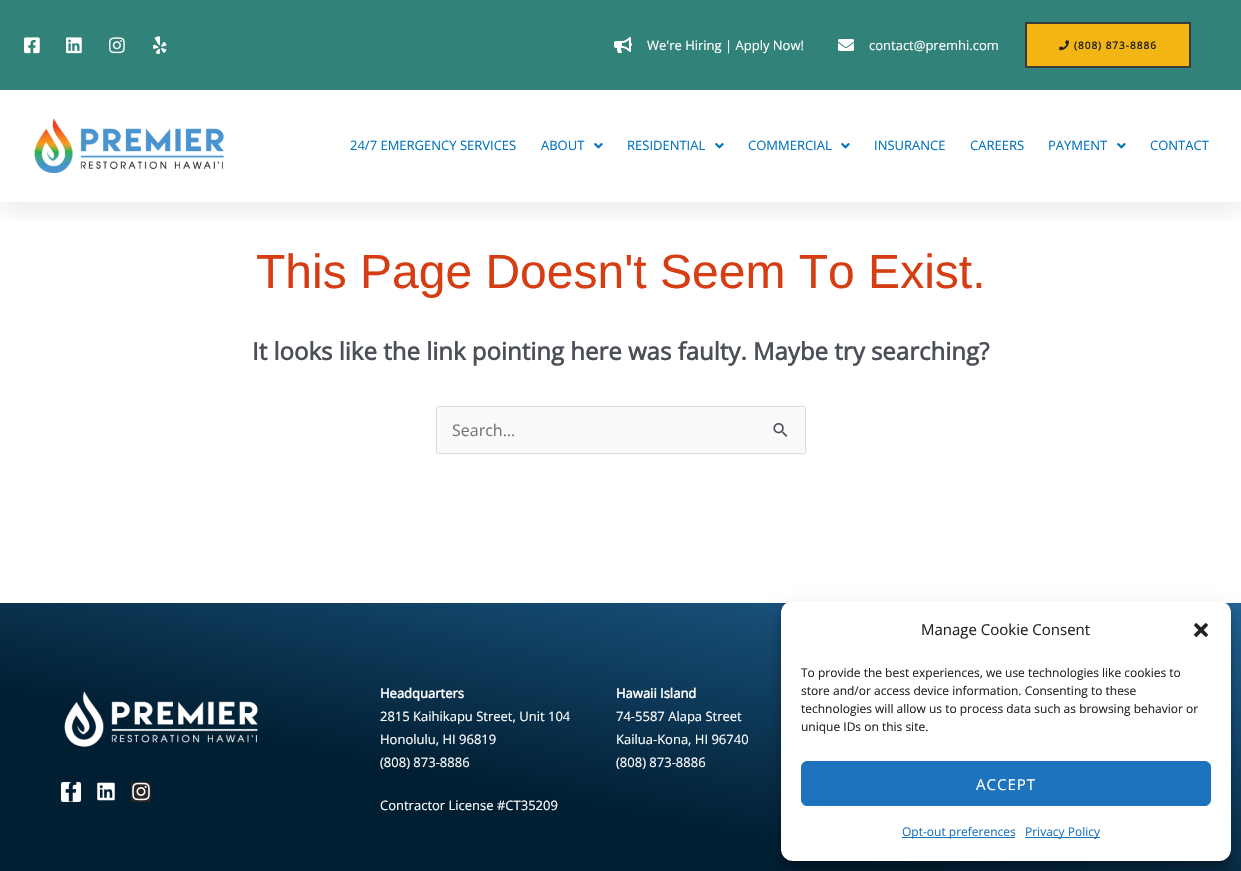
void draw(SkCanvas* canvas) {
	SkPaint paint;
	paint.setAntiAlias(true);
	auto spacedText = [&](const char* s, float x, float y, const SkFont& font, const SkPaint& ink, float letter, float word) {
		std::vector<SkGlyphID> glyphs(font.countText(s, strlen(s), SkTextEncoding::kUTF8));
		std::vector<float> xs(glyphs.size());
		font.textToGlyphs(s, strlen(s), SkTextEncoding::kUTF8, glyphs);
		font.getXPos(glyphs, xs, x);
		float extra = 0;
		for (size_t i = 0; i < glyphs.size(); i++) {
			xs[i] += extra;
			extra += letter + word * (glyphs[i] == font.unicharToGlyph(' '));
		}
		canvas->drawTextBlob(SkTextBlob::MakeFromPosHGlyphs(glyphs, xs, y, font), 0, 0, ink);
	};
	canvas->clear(0xffffffff);
	canvas->save();
	canvas->clipRect(SkRect::MakeXYWH(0, 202, 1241, 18));
	paint.setColor(0x1a000000);
	paint.setMaskFilter(SkMaskFilter::MakeBlur(kNormal_SkBlurStyle, 15));
	canvas->drawRect(SkRect::MakeXYWH(0, 5, 1241, 202), paint);
	paint.setMaskFilter(nullptr);
	canvas->restore();
	paint.setColor(0xff318279);
	canvas->drawRect(SkRect::MakeXYWH(0, 0, 1241, 90), paint);
	canvas->drawImageRect(SkImages::DeferredFromEncodedData(SkData::MakeFromFileName("img1.png")), SkRect::MakeXYWH(24, 37, 16, 17), SkSamplingOptions());
	canvas->drawImageRect(SkImages::DeferredFromEncodedData(SkData::MakeFromFileName("img2.png")), SkRect::MakeXYWH(66, 37, 16, 17), SkSamplingOptions());
	canvas->drawImageRect(SkImages::DeferredFromEncodedData(SkData::MakeFromFileName("img3.png")), SkRect::MakeXYWH(109, 37, 16, 17), SkSamplingOptions());
	canvas->drawImageRect(SkImages::DeferredFromEncodedData(SkData::MakeFromFileName("img4.png")), SkRect::MakeXYWH(153, 36, 14, 18), SkSamplingOptions());
	canvas->drawImageRect(SkImages::DeferredFromEncodedData(SkData::MakeFromFileName("img5.png")), SkRect::MakeXYWH(614, 37, 18, 16), SkSamplingOptions());
	SkFont f1(fontMgr->matchFamilyStyle("Open Sans", SkFontStyle::Normal()), 13);
	f1.setSubpixel(true);
	paint.setColor(0xffffffff);
	canvas->drawString("We're Hiring | Apply Now!", 647, 50, f1, paint);
	canvas->drawImageRect(SkImages::DeferredFromEncodedData(SkData::MakeFromFileName("img6.png")), SkRect::MakeXYWH(838, 39, 16, 12), SkSamplingOptions());
	canvas->drawString("contact@premhi.com", 869, 50, f1, paint);
	paint.setColor(0xfff2b513);
	canvas->drawRect(SkRect::MakeXYWH(1026, 23, 164, 44), paint);
	paint.setStroke(true);
	paint.setStrokeWidth(2);
	paint.setColor(0xff3a3a3a);
	canvas->drawRect(SkRect::MakeXYWH(1026, 23, 164, 44), paint);
	canvas->drawImageRect(SkImages::DeferredFromEncodedData(SkData::MakeFromFileName("img7.png")), SkRect::MakeXYWH(1059, 40, 10, 11), SkSamplingOptions());
	SkFont f2(fontMgr->matchFamilyStyle("Open Sans", SkFontStyle::Bold()), 10);
	f2.setSubpixel(true);
	paint.setStroke(false);
	paint.setColor(0xff232323);
	spacedText("(808) 873-8886", 1074, 49, f2, paint, 1, 0);
	canvas->drawImageRect(SkImages::DeferredFromEncodedData(SkData::MakeFromFileName("img8.png")), SkRect::MakeXYWH(34, 118, 190, 56), SkSamplingOptions());
	paint.setColor(0xff0274be);
	canvas->drawString("24/7 EMERGENCY SERVICES", 350, 150, f1, paint);
	canvas->drawString("ABOUT", 541, 150, f1, paint);
	canvas->drawImageRect(SkImages::DeferredFromEncodedData(SkData::MakeFromFileName("img9.png")), SkRect::MakeXYWH(594, 143, 9, 6), SkSamplingOptions());
	canvas->drawString("RESIDENTIAL", 627, 150, f1, paint);
	canvas->drawImageRect(SkImages::DeferredFromEncodedData(SkData::MakeFromFileName("img9.png")), SkRect::MakeXYWH(715, 143, 9, 6), SkSamplingOptions());
	canvas->drawString("COMMERCIAL", 748, 150, f1, paint);
	canvas->drawImageRect(SkImages::DeferredFromEncodedData(SkData::MakeFromFileName("img9.png")), SkRect::MakeXYWH(841, 143, 9, 6), SkSamplingOptions());
	canvas->drawString("INSURANCE", 874, 150, f1, paint);
	canvas->drawString("CAREERS", 970, 150, f1, paint);
	canvas->drawString("PAYMENT", 1048, 150, f1, paint);
	canvas->drawImageRect(SkImages::DeferredFromEncodedData(SkData::MakeFromFileName("img9.png")), SkRect::MakeXYWH(1117, 143, 9, 6), SkSamplingOptions());
	canvas->drawString("CONTACT", 1150, 150, f1, paint);
	SkFont f3(fontMgr->matchFamilyStyle("Liberation Sans", SkFontStyle::Normal()), 48);
	f3.setSubpixel(true);
	paint.setColor(0xffd63d13);
	canvas->drawString("This Page Doesn't Seem To Exist.", 256, 288, f3, paint);
	SkFont f4(fontMgr->matchFamilyStyle("Open Sans", SkFontStyle::Bold()), 24);
	f4.setSubpixel(true);
	paint.setColor(0xff4b4f58);
	canvas->drawString("It looks like the link pointing here was faulty. Maybe try searching?", 252, 360, f4, paint);
	paint.setColor(0xfffafafa);
	canvas->drawRoundRect(SkRect::MakeXYWH(436.5, 406.5, 369, 47), 1.5, 1.5, paint);
	paint.setStroke(true);
	paint.setStrokeWidth(1);
	paint.setColor(0xffdddddd);
	canvas->drawRoundRect(SkRect::MakeXYWH(436.5, 406.5, 369, 47), 1.5, 1.5, paint);
	SkFont f5(fontMgr->matchFamilyStyle("Open Sans", SkFontStyle::Normal()), 16);
	f5.setSubpixel(true);
	paint.setStroke(false);
	paint.setColor(0xff757575);
	canvas->drawString("Search...", 452, 436, f5, paint);
	canvas->drawImageRect(SkImages::DeferredFromEncodedData(SkData::MakeFromFileName("img10.png")), SkRect::MakeXYWH(773, 423, 15, 14), SkSamplingOptions());
	{
		const SkColor colors[] = {0xff216395, 0xff011f33};
		const float stops[] = {0, 0.62};
		const SkPoint ends[] = {{671, 492}, {570, 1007}};
		paint.setShader(SkGradientShader::MakeLinear(ends, colors, stops, 2, SkTileMode::kClamp));
		paint.setAlpha(255);
	}
	canvas->drawRect(SkRect::MakeXYWH(0, 603, 1241, 268), paint);
	canvas->drawImageRect(SkImages::DeferredFromEncodedData(SkData::MakeFromFileName("img11.png")), SkRect::MakeXYWH(64, 691, 194, 56), SkSamplingOptions());
	paint.setShader(nullptr);
	paint.setColor(0xffffffff);
	canvas->drawRoundRect(SkRect::MakeXYWH(61, 782, 20, 20), 2, 2, paint);
	canvas->drawImageRect(SkImages::DeferredFromEncodedData(SkData::MakeFromFileName("img12.png")), SkRect::MakeXYWH(65, 782, 12, 20), SkSamplingOptions());
	canvas->drawImageRect(SkImages::DeferredFromEncodedData(SkData::MakeFromFileName("img13.png")), SkRect::MakeXYWH(97, 782, 18, 19), SkSamplingOptions());
	paint.setColor(0xff262626);
	canvas->drawRoundRect(SkRect::MakeXYWH(131, 782, 20, 20), 2, 2, paint);
	canvas->drawImageRect(SkImages::DeferredFromEncodedData(SkData::MakeFromFileName("img14.png")), SkRect::MakeXYWH(132, 782, 18, 19), SkSamplingOptions());
	SkFont f6(fontMgr->matchFamilyStyle("Open Sans", SkFontStyle::Bold()), 13);
	f6.setSubpixel(true);
	paint.setColor(0xffffffff);
	canvas->drawString("Headquarters", 380, 698, f6, paint);
	canvas->drawString("2815 Kaihikapu Street, Unit 104", 380, 721, f1, paint);
	canvas->drawString("Honolulu, HI 96819", 380, 744, f1, paint);
	canvas->drawString("(808) 873-8886", 380, 767, f1, paint);
	canvas->drawString("Contractor License #CT35209", 380, 810, f1, paint);
	canvas->drawString("Hawaii Island", 616, 698, f6, paint);
	canvas->drawString("74-5587 Alapa Street", 616, 721, f1, paint);
	canvas->drawString("Kailua-Kona, HI 96740", 616, 744, f1, paint);
	canvas->drawString("(808) 873-8886", 616, 767, f1, paint);
	paint.setColor(0x3b000000);
	paint.setMaskFilter(SkMaskFilter::MakeBlur(kNormal_SkBlurStyle, 3));
	canvas->drawRoundRect(SkRect::MakeXYWH(781, 607, 450, 260), 12, 12, paint);
	paint.setMaskFilter(nullptr);
	paint.setColor(0x30000000);
	paint.setMaskFilter(SkMaskFilter::MakeBlur(kNormal_SkBlurStyle, 10));
	canvas->drawRoundRect(SkRect::MakeXYWH(781, 611, 450, 260), 12, 12, paint);
	paint.setMaskFilter(nullptr);
	paint.setColor(0xffffffff);
	canvas->drawRoundRect(SkRect::MakeXYWH(781, 601, 450, 260), 12, 12, paint);
	SkFont f7(fontMgr->matchFamilyStyle("Open Sans", SkFontStyle::Normal()), 15);
	f7.setSubpixel(true);
	paint.setColor(0xff232323);
	canvas->drawString("Manage Cookie Consent", 921, 635, f7, paint);
	canvas->drawImageRect(SkImages::DeferredFromEncodedData(SkData::MakeFromFileName("img15.png")), SkRect::MakeXYWH(1194, 623, 14, 14), SkSamplingOptions());
	SkFont f8(fontMgr->matchFamilyStyle("Open Sans", SkFontStyle::Normal()), 12);
	f8.setSubpixel(true);
	canvas->drawString("To provide the best experiences, we use technologies like cookies to", 801, 677, f8, paint);
	canvas->drawString("store and/or access device information. Consenting to these", 801, 695, f8, paint);
	canvas->drawString("technologies will allow us to process data such as browsing behavior or", 801, 713, f8, paint);
	canvas->drawString("unique IDs on this site.", 801, 731, f8, paint);
	paint.setColor(0xff1e73be);
	canvas->drawRoundRect(SkRect::MakeXYWH(801.5, 761.5, 409, 44), 5.5, 5.5, paint);
	paint.setStroke(true);
	canvas->drawRoundRect(SkRect::MakeXYWH(801.5, 761.5, 409, 44), 5.5, 5.5, paint);
	paint.setStroke(false);
	paint.setColor(0xffffffff);
	spacedText("ACCEPT", 976, 790, f7, paint, 1, 0);
	paint.setColor(0xff1e73be);
	canvas->drawRect(SkRect::MakeXYWH(902, 837, 113, 1), paint);
	canvas->drawString("Opt-out preferences", 902, 836, f8, paint);
	canvas->drawRect(SkRect::MakeXYWH(1025, 837, 75, 1), paint);
	canvas->drawString("Privacy Policy", 1025, 836, f8, paint);
}
